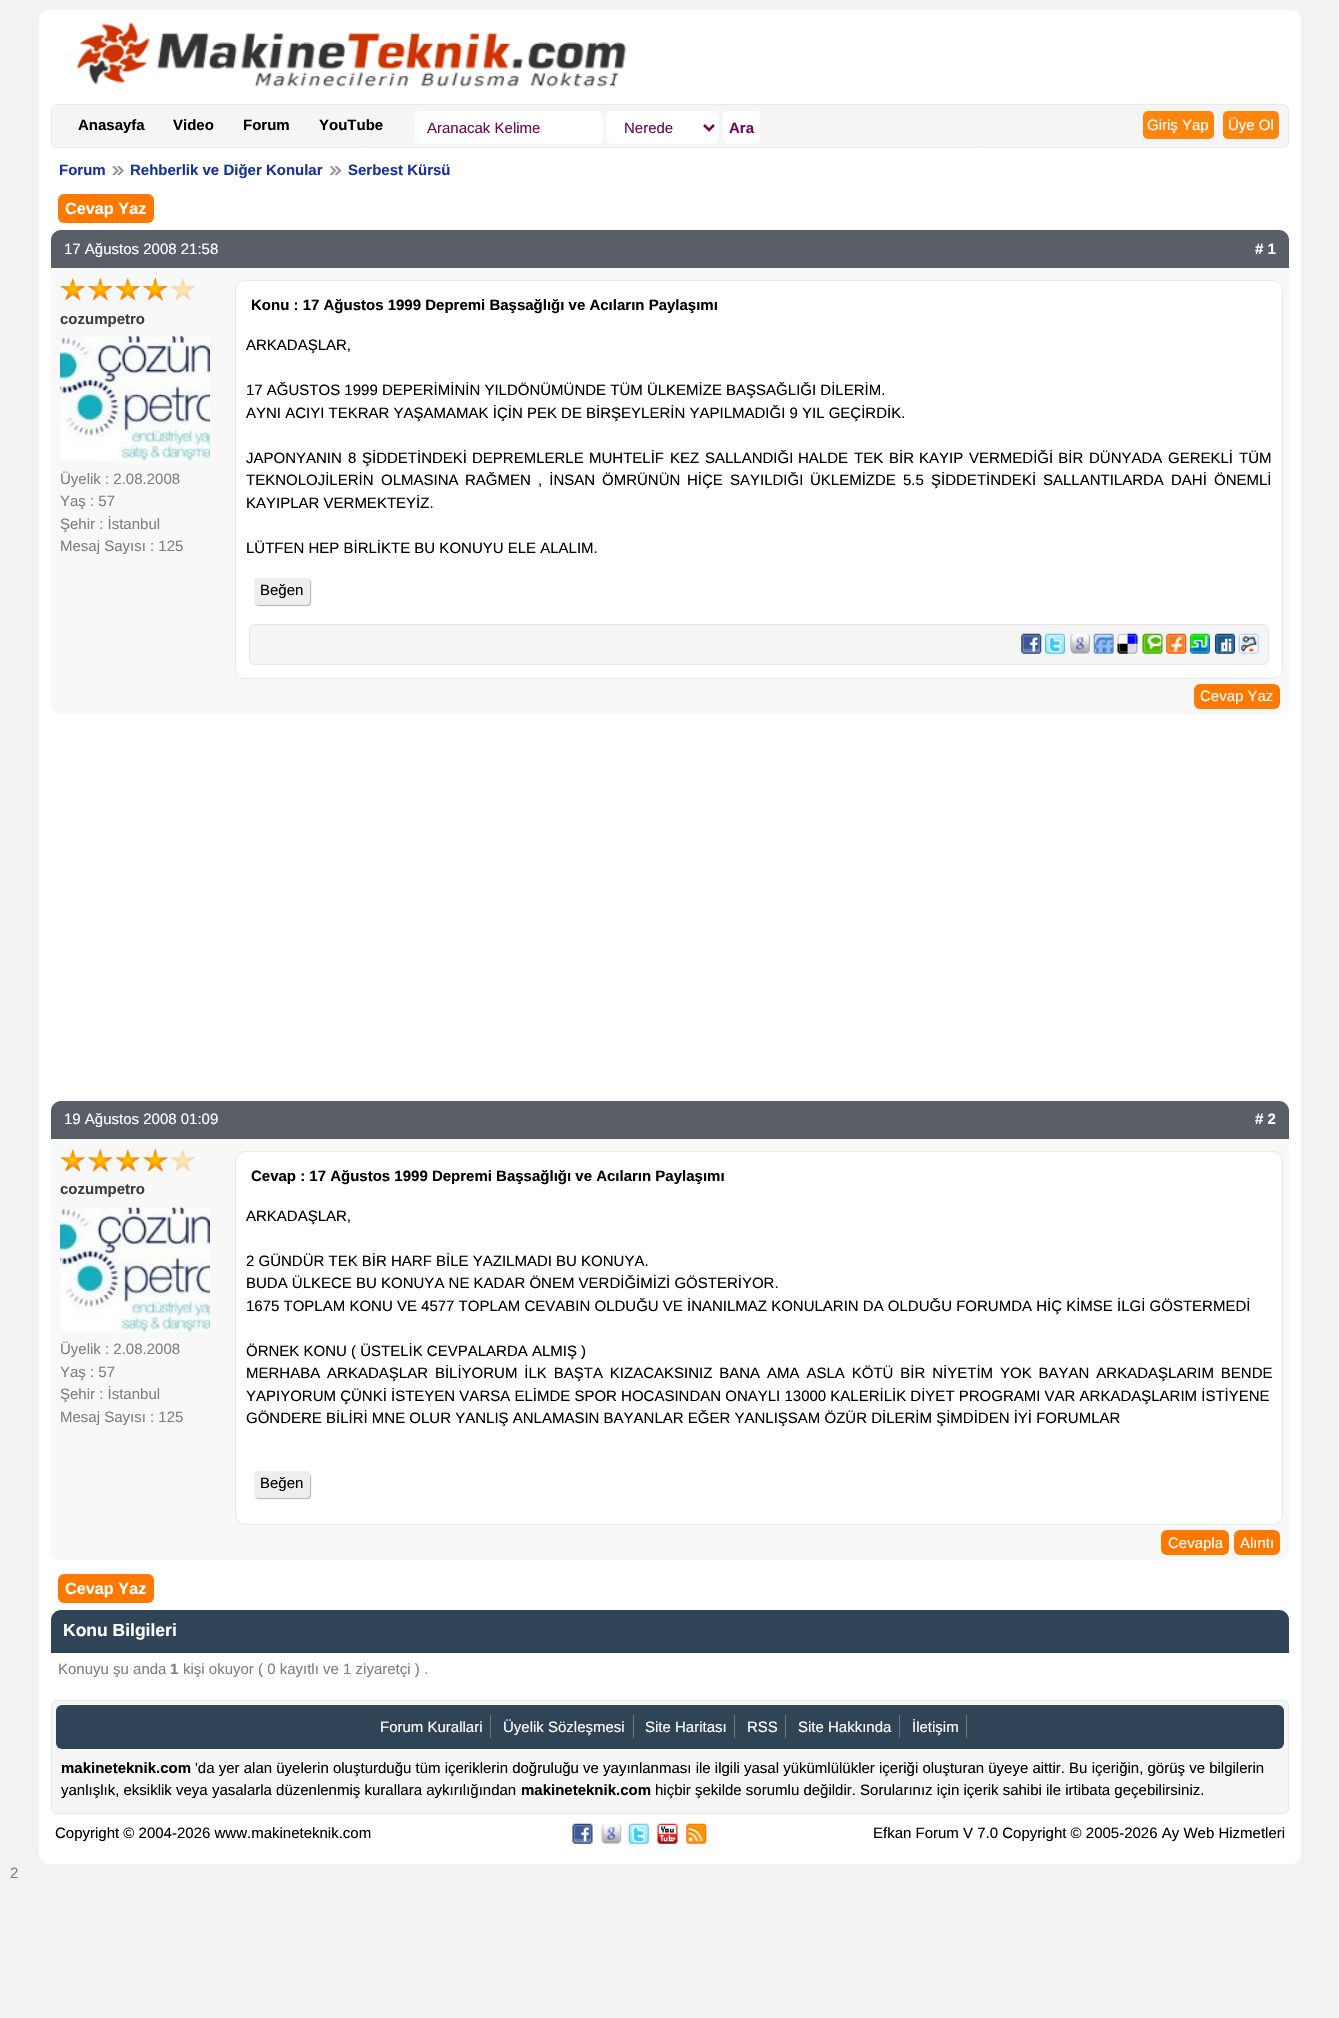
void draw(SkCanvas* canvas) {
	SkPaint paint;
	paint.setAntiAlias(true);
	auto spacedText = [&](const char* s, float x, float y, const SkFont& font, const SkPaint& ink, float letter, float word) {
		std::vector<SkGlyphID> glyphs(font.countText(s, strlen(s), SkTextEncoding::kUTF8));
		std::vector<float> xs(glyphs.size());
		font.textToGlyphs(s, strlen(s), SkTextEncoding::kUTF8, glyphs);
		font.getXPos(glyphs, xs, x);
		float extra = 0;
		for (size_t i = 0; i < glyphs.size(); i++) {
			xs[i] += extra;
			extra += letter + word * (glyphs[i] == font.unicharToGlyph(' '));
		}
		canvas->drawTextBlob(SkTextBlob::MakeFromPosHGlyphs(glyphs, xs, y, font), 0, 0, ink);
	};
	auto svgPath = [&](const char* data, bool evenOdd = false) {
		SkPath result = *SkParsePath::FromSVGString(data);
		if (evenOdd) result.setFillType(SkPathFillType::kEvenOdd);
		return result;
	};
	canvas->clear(0xfff2f2f2);
	paint.setColor(0xffffffff);
	canvas->drawRoundRect(SkRect::MakeXYWH(39, 10, 1262, 1854), 10, 10, paint);
	canvas->drawImageRect(SkImages::DeferredFromEncodedData(SkData::MakeFromFileName("img1.png")), SkRect::MakeXYWH(77, 22, 550, 66), SkSamplingOptions());
	paint.setColor(0xfff5f5f5);
	canvas->drawRoundRect(SkRect::MakeXYWH(51.5, 104.5, 1237, 43), 5.5, 5.5, paint);
	paint.setStroke(true);
	paint.setStrokeWidth(1);
	paint.setColor(0xffe9e9e9);
	canvas->drawRoundRect(SkRect::MakeXYWH(51.5, 104.5, 1237, 43), 5.5, 5.5, paint);
	SkFont f1(fontMgr->matchFamilyStyle("Liberation Sans", SkFontStyle::Bold()), 15);
	f1.setSubpixel(true);
	paint.setStroke(false);
	paint.setColor(0xff000000);
	canvas->drawString("Anasayfa", 78, 130, f1, paint);
	canvas->drawString("Video", 173, 130, f1, paint);
	canvas->drawString("Forum", 243, 130, f1, paint);
	canvas->drawString("YouTube", 319, 130, f1, paint);
	paint.setColor(0xffffffff);
	canvas->drawRoundRect(SkRect::MakeXYWH(415, 111, 188, 33), 6, 6, paint);
	SkFont f2(fontMgr->matchFamilyStyle("Liberation Sans", SkFontStyle::Normal()), 15);
	f2.setSubpixel(true);
	paint.setColor(0xff6f0655);
	canvas->drawString("Aranacak Kelime", 427, 133, f2, paint);
	paint.setColor(0xffffffff);
	canvas->drawRoundRect(SkRect::MakeXYWH(606, 111, 113, 33), 6, 6, paint);
	paint.setStroke(true);
	paint.setStrokeWidth(2.5);
	paint.setColor(0xff6f0655);
	canvas->drawPath(svgPath("M704 125L709 130L714 125"), paint);
	paint.setStroke(false);
	canvas->drawString("Nerede", 624, 133, f2, paint);
	paint.setColor(0xffffffff);
	canvas->drawRoundRect(SkRect::MakeXYWH(723, 111, 37, 33), 5, 5, paint);
	paint.setColor(0xff6f0655);
	canvas->drawString("Ara", 729, 133, f1, paint);
	paint.setColor(0xffff860e);
	canvas->drawRoundRect(SkRect::MakeXYWH(1143, 111, 71, 28), 5, 5, paint);
	paint.setColor(0xffffffff);
	canvas->drawString("Giriş Yap", 1147, 130, f2, paint);
	paint.setColor(0xffff860e);
	canvas->drawRoundRect(SkRect::MakeXYWH(1223, 111, 56, 28), 5, 5, paint);
	paint.setColor(0xffffffff);
	canvas->drawString("Üye Ol", 1228, 130, f2, paint);
	paint.setColor(0xff173399);
	canvas->drawString("Forum", 59, 175, f1, paint);
	canvas->drawImageRect(SkImages::DeferredFromEncodedData(SkData::MakeFromFileName("img2.png")), SkRect::MakeXYWH(112, 166, 12, 10), SkSamplingOptions());
	canvas->drawString("Rehberlik ve Diğer Konular", 130, 175, f1, paint);
	canvas->drawImageRect(SkImages::DeferredFromEncodedData(SkData::MakeFromFileName("img3.png")), SkRect::MakeXYWH(329, 166, 13, 10), SkSamplingOptions());
	canvas->drawString("Serbest Kürsü", 348, 175, f1, paint);
	paint.setColor(0xffff7800);
	canvas->drawRoundRect(SkRect::MakeXYWH(58, 194, 96, 29), 6, 6, paint);
	SkFont f3(fontMgr->matchFamilyStyle("Liberation Sans", SkFontStyle::Bold()), 16.25);
	f3.setSubpixel(true);
	paint.setColor(0xffffffff);
	canvas->drawString("Cevap Yaz", 65, 214, f3, paint);
	paint.setColor(0xfff8f8f8);
	canvas->drawRoundRect(SkRect::MakeXYWH(51, 230, 1238, 484), 10, 10, paint);
	paint.setColor(0xff5a5e66);
	canvas->drawPath(svgPath("M61 230H1279C1284.5 230 1289 234.5 1289 240V268H51V240C51 234.5 55.5 230 61 230Z"), paint);
	paint.setColor(0xffffffff);
	canvas->drawString("17 Ağustos 2008 21:58", 64, 254, f2, paint);
	canvas->drawString("# 1", 1255, 254, f1, paint);
	canvas->drawImageRect(SkImages::DeferredFromEncodedData(SkData::MakeFromFileName("img4.png")), SkRect::MakeXYWH(60, 277, 25, 24), SkSamplingOptions());
	canvas->drawImageRect(SkImages::DeferredFromEncodedData(SkData::MakeFromFileName("img5.png")), SkRect::MakeXYWH(88, 277, 25, 24), SkSamplingOptions());
	canvas->drawImageRect(SkImages::DeferredFromEncodedData(SkData::MakeFromFileName("img4.png")), SkRect::MakeXYWH(115, 277, 25, 24), SkSamplingOptions());
	canvas->drawImageRect(SkImages::DeferredFromEncodedData(SkData::MakeFromFileName("img5.png")), SkRect::MakeXYWH(143, 277, 25, 24), SkSamplingOptions());
	canvas->drawImageRect(SkImages::DeferredFromEncodedData(SkData::MakeFromFileName("img6.png")), SkRect::MakeXYWH(170, 278, 25, 23), SkSamplingOptions());
	paint.setColor(0xff3e3e3e);
	canvas->drawString("cozumpetro", 60, 324, f1, paint);
	canvas->drawImageRect(SkImages::DeferredFromEncodedData(SkData::MakeFromFileName("img7.png")), SkRect::MakeXYWH(60, 336, 150, 125), SkSamplingOptions());
	paint.setColor(0xff7f7f7f);
	canvas->drawString("Üyelik : 2.08.2008", 60, 484, f2, paint);
	canvas->drawString("Yaş : 57", 60, 506, f2, paint);
	canvas->drawString("Şehir : İstanbul", 60, 529, f2, paint);
	canvas->drawString("Mesaj Sayısı : 125", 60, 551, f2, paint);
	paint.setColor(0xffffffff);
	canvas->drawRoundRect(SkRect::MakeXYWH(235.5, 280.5, 1047, 398), 9.5, 9.5, paint);
	paint.setStroke(true);
	paint.setStrokeWidth(1);
	paint.setColor(0xffe9e9e9);
	canvas->drawRoundRect(SkRect::MakeXYWH(235.5, 280.5, 1047, 398), 9.5, 9.5, paint);
	paint.setStroke(false);
	paint.setColor(0xff000000);
	canvas->drawString("Konu : 17 Ağustos 1999 Depremi Başsağlığı ve Acıların Paylaşımı", 251, 310, f1, paint);
	canvas->drawString("ARKADAŞLAR,", 246, 350, f2, paint);
	canvas->drawString("17 AĞUSTOS 1999 DEPERİMİNİN YILDÖNÜMÜNDE TÜM ÜLKEMİZE BAŞSAĞLIĞI DİLERİM.", 246, 395, f2, paint);
	canvas->drawString("AYNI ACIYI TEKRAR YAŞAMAMAK İÇİN PEK DE BİRŞEYLERİN YAPILMADIĞI 9 YIL GEÇİRDİK.", 246, 418, f2, paint);
	canvas->drawString("JAPONYANIN", 246, 463, f2, paint);
	canvas->drawString("8", 348, 463, f2, paint);
	canvas->drawString("ŞİDDETİNDEKİ", 362, 463, f2, paint);
	canvas->drawString("DEPREMLERLE", 472, 463, f2, paint);
	canvas->drawString("MUHTELİF", 589, 463, f2, paint);
	canvas->drawString("KEZ", 670, 463, f2, paint);
	canvas->drawString("SALLANDIĞI", 705, 463, f2, paint);
	canvas->drawString("HALDE", 798, 463, f2, paint);
	canvas->drawString("TEK", 854, 463, f2, paint);
	canvas->drawString("BİR", 889, 463, f2, paint);
	canvas->drawString("KAYIP", 919, 463, f2, paint);
	spacedText("VERMEDİĞİ BİR", 969, 463, f2, paint, 0, 1);
	canvas->drawString("DÜNYADA", 1089, 463, f2, paint);
	canvas->drawString("GEREKLİ", 1168, 463, f2, paint);
	canvas->drawString("TÜM", 1239, 463, f2, paint);
	canvas->drawString("TEKNOLOJİLERİN", 246, 485, f2, paint);
	canvas->drawString("OLMASINA", 381, 485, f2, paint);
	spacedText("RAĞMEN , İNSAN", 465, 485, f2, paint, 0, 3);
	canvas->drawString("ÖMRÜNÜN", 602, 485, f2, paint);
	canvas->drawString("HİÇE", 687, 485, f2, paint);
	canvas->drawString("SAYILDIĞI", 730, 485, f2, paint);
	spacedText("ÜKLEMİZDE 5.5 ŞİDDETİNDEKİ", 810, 485, f2, paint, 0, 3);
	canvas->drawString("SALLANTILARDA", 1043, 485, f2, paint);
	canvas->drawString("DAHİ", 1171, 485, f2, paint);
	canvas->drawString("ÖNEMLİ", 1214, 485, f2, paint);
	canvas->drawString("KAYIPLAR VERMEKTEYİZ.", 246, 508, f2, paint);
	canvas->drawString("LÜTFEN HEP BİRLİKTE BU KONUYU ELE ALALIM.", 246, 553, f2, paint);
	paint.setColor(0xffb2b2b2);
	paint.setMaskFilter(SkMaskFilter::MakeBlur(kNormal_SkBlurStyle, 0.5));
	canvas->drawRoundRect(SkRect::MakeXYWH(255, 579, 56, 27), 4, 4, paint);
	paint.setMaskFilter(nullptr);
	paint.setColor(0xffeeeeee);
	canvas->drawRoundRect(SkRect::MakeXYWH(254, 578, 56, 27), 4, 4, paint);
	paint.setColor(0xff000000);
	canvas->drawString("Beğen", 260, 595, f2, paint);
	paint.setColor(0xfff5f5f5);
	canvas->drawRoundRect(SkRect::MakeXYWH(249.5, 624.5, 1019, 40), 5.5, 5.5, paint);
	paint.setStroke(true);
	paint.setColor(0xffe7e7e7);
	canvas->drawRoundRect(SkRect::MakeXYWH(249.5, 624.5, 1019, 40), 5.5, 5.5, paint);
	canvas->drawImageRect(SkImages::DeferredFromEncodedData(SkData::MakeFromFileName("img8.png")), SkRect::MakeXYWH(1021, 633, 21, 21), SkSamplingOptions());
	canvas->drawImageRect(SkImages::DeferredFromEncodedData(SkData::MakeFromFileName("img9.png")), SkRect::MakeXYWH(1045, 633, 20, 21), SkSamplingOptions());
	canvas->drawImageRect(SkImages::DeferredFromEncodedData(SkData::MakeFromFileName("img10.png")), SkRect::MakeXYWH(1070, 633, 20, 21), SkSamplingOptions());
	canvas->drawImageRect(SkImages::DeferredFromEncodedData(SkData::MakeFromFileName("img11.png")), SkRect::MakeXYWH(1093, 633, 21, 21), SkSamplingOptions());
	canvas->drawImageRect(SkImages::DeferredFromEncodedData(SkData::MakeFromFileName("img12.png")), SkRect::MakeXYWH(1117, 633, 21, 21), SkSamplingOptions());
	canvas->drawImageRect(SkImages::DeferredFromEncodedData(SkData::MakeFromFileName("img13.png")), SkRect::MakeXYWH(1142, 633, 21, 21), SkSamplingOptions());
	canvas->drawImageRect(SkImages::DeferredFromEncodedData(SkData::MakeFromFileName("img14.png")), SkRect::MakeXYWH(1166, 633, 21, 21), SkSamplingOptions());
	canvas->drawImageRect(SkImages::DeferredFromEncodedData(SkData::MakeFromFileName("img15.png")), SkRect::MakeXYWH(1190, 633, 20, 21), SkSamplingOptions());
	canvas->drawImageRect(SkImages::DeferredFromEncodedData(SkData::MakeFromFileName("img16.png")), SkRect::MakeXYWH(1215, 633, 20, 21), SkSamplingOptions());
	canvas->drawImageRect(SkImages::DeferredFromEncodedData(SkData::MakeFromFileName("img17.png")), SkRect::MakeXYWH(1238, 633, 21, 21), SkSamplingOptions());
	paint.setStroke(false);
	paint.setColor(0xffff7800);
	canvas->drawRoundRect(SkRect::MakeXYWH(1194, 684, 86, 25), 6, 6, paint);
	paint.setColor(0xffffffff);
	canvas->drawString("Cevap Yaz", 1200, 701, f2, paint);
	paint.setColor(0xfff8f8f8);
	canvas->drawRoundRect(SkRect::MakeXYWH(51, 1101, 1238, 459), 10, 10, paint);
	paint.setColor(0xff5a5e66);
	canvas->drawPath(svgPath("M61 1101H1279C1284.5 1101 1289 1105.5 1289 1111V1139H51V1111C51 1105.5 55.5 1101 61 1101Z"), paint);
	paint.setColor(0xffffffff);
	canvas->drawString("19 Ağustos 2008 01:09", 64, 1124, f2, paint);
	canvas->drawString("# 2", 1255, 1124, f1, paint);
	canvas->drawImageRect(SkImages::DeferredFromEncodedData(SkData::MakeFromFileName("img18.png")), SkRect::MakeXYWH(60, 1149, 25, 23), SkSamplingOptions());
	canvas->drawImageRect(SkImages::DeferredFromEncodedData(SkData::MakeFromFileName("img19.png")), SkRect::MakeXYWH(88, 1149, 25, 23), SkSamplingOptions());
	canvas->drawImageRect(SkImages::DeferredFromEncodedData(SkData::MakeFromFileName("img18.png")), SkRect::MakeXYWH(115, 1149, 25, 23), SkSamplingOptions());
	canvas->drawImageRect(SkImages::DeferredFromEncodedData(SkData::MakeFromFileName("img19.png")), SkRect::MakeXYWH(143, 1149, 25, 23), SkSamplingOptions());
	canvas->drawImageRect(SkImages::DeferredFromEncodedData(SkData::MakeFromFileName("img20.png")), SkRect::MakeXYWH(171, 1149, 24, 23), SkSamplingOptions());
	paint.setColor(0xff3e3e3e);
	canvas->drawString("cozumpetro", 60, 1194, f1, paint);
	canvas->drawImageRect(SkImages::DeferredFromEncodedData(SkData::MakeFromFileName("img21.png")), SkRect::MakeXYWH(60, 1207, 150, 126), SkSamplingOptions());
	paint.setColor(0xff7f7f7f);
	canvas->drawString("Üyelik : 2.08.2008", 60, 1354, f2, paint);
	canvas->drawString("Yaş : 57", 60, 1377, f2, paint);
	canvas->drawString("Şehir : İstanbul", 60, 1399, f2, paint);
	canvas->drawString("Mesaj Sayısı : 125", 60, 1422, f2, paint);
	paint.setColor(0xffffffff);
	canvas->drawRoundRect(SkRect::MakeXYWH(235.5, 1151.5, 1047, 373), 9.5, 9.5, paint);
	paint.setStroke(true);
	paint.setColor(0xffe9e9e9);
	canvas->drawRoundRect(SkRect::MakeXYWH(235.5, 1151.5, 1047, 373), 9.5, 9.5, paint);
	paint.setStroke(false);
	paint.setColor(0xff000000);
	canvas->drawString("Cevap : 17 Ağustos 1999 Depremi Başsağlığı ve Acıların Paylaşımı", 251, 1181, f1, paint);
	canvas->drawString("ARKADAŞLAR,", 246, 1221, f2, paint);
	canvas->drawString("2 GÜNDÜR TEK BİR HARF BİLE YAZILMADI BU KONUYA.", 246, 1266, f2, paint);
	canvas->drawString("BUDA ÜLKECE BU KONUYA NE KADAR ÖNEM VERDİĞİMİZİ GÖSTERİYOR.", 246, 1288, f2, paint);
	canvas->drawString("1675 TOPLAM KONU VE 4577 TOPLAM CEVABIN OLDUĞU VE İNANILMAZ KONULARIN DA OLDUĞU FORUMDA HİÇ KİMSE İLGİ GÖSTERMEDİ", 246, 1311, f2, paint);
	canvas->drawString("ÖRNEK KONU ( ÜSTELİK CEVPALARDA ALMIŞ )", 246, 1356, f2, paint);
	spacedText("MERHABA ARKADAŞLAR BİLİYORUM İLK BAŞTA KIZACAKSINIZ BANA AMA ASLA KÖTÜ BİR NİYETİM YOK BAYAN ARKADAŞLARIM BENDE", 246, 1378, f2, paint, 0, 2.75);
	canvas->drawString("YAPIYORUM ÇÜNKİ İSTEYEN VARSA ELİMDE SPOR HOCASINDAN ONAYLI 13000 KALERİLİK DİYET PROGRAMI VAR ARKADAŞLARIM İSTİYENE", 246, 1401, f2, paint);
	canvas->drawString("GÖNDERE BİLİRİ MNE OLUR YANLIŞ ANLAMASIN BAYANLAR EĞER YANLIŞSAM ÖZÜR DİLERİM ŞİMDİDEN İYİ FORUMLAR", 246, 1423, f2, paint);
	paint.setColor(0xffb2b2b2);
	paint.setMaskFilter(SkMaskFilter::MakeBlur(kNormal_SkBlurStyle, 0.5));
	canvas->drawRoundRect(SkRect::MakeXYWH(255, 1473, 56, 26), 4, 4, paint);
	paint.setMaskFilter(nullptr);
	paint.setColor(0xffeeeeee);
	canvas->drawRoundRect(SkRect::MakeXYWH(254, 1471, 56, 27), 4, 4, paint);
	paint.setColor(0xff000000);
	canvas->drawString("Beğen", 260, 1488, f2, paint);
	paint.setColor(0xffff7800);
	canvas->drawRoundRect(SkRect::MakeXYWH(1161, 1530, 68, 25), 6, 6, paint);
	paint.setColor(0xffffffff);
	canvas->drawString("Cevapla", 1168, 1548, f2, paint);
	paint.setColor(0xffff7800);
	canvas->drawRoundRect(SkRect::MakeXYWH(1234, 1530, 46, 25), 6, 6, paint);
	paint.setColor(0xffffffff);
	canvas->drawString("Alıntı", 1240, 1548, f2, paint);
	paint.setColor(0xffff7800);
	canvas->drawRoundRect(SkRect::MakeXYWH(58, 1574, 96, 29), 6, 6, paint);
	paint.setColor(0xffffffff);
	canvas->drawString("Cevap Yaz", 65, 1594, f3, paint);
	paint.setColor(0xff2f4456);
	canvas->drawPath(svgPath("M61 1610H1279C1284.5 1610 1289 1614.5 1289 1620V1653H51V1620C51 1614.5 55.5 1610 61 1610Z"), paint);
	SkFont f4(fontMgr->matchFamilyStyle("Liberation Sans", SkFontStyle::Bold()), 17.5);
	f4.setSubpixel(true);
	paint.setColor(0xffffffff);
	canvas->drawString("Konu Bilgileri", 63, 1636, f4, paint);
	paint.setColor(0xff7f7f7f);
	canvas->drawString("Konuyu şu anda", 58, 1674, f2, paint);
	canvas->drawString("1", 170, 1674, f1, paint);
	canvas->drawString("kişi okuyor ( 0 kayıtlı ve 1 ziyaretçi ) .", 183, 1674, f2, paint);
	paint.setColor(0xfff5f5f5);
	canvas->drawRoundRect(SkRect::MakeXYWH(51.5, 1700.5, 1237, 113), 5.5, 5.5, paint);
	paint.setStroke(true);
	paint.setColor(0xffe7e7e7);
	canvas->drawRoundRect(SkRect::MakeXYWH(51.5, 1700.5, 1237, 113), 5.5, 5.5, paint);
	paint.setStroke(false);
	paint.setColor(0xff2f4456);
	canvas->drawRoundRect(SkRect::MakeXYWH(56, 1705, 1228, 44), 6, 6, paint);
	paint.setColor(0xffffffff);
	canvas->drawString("Forum Kurallari", 380, 1732, f2, paint);
	paint.setColor(0xff757575);
	canvas->drawRect(SkRect::MakeXYWH(490, 1715, 1, 23), paint);
	paint.setColor(0xffffffff);
	canvas->drawString("Üyelik Sözleşmesi", 503, 1732, f2, paint);
	paint.setColor(0xff757575);
	canvas->drawRect(SkRect::MakeXYWH(633, 1715, 1, 23), paint);
	paint.setColor(0xffffffff);
	canvas->drawString("Site Haritası", 645, 1732, f2, paint);
	paint.setColor(0xff757575);
	canvas->drawRect(SkRect::MakeXYWH(734, 1715, 1, 23), paint);
	paint.setColor(0xffffffff);
	canvas->drawString("RSS", 747, 1732, f2, paint);
	paint.setColor(0xff757575);
	canvas->drawRect(SkRect::MakeXYWH(785, 1715, 1, 23), paint);
	paint.setColor(0xffffffff);
	canvas->drawString("Site Hakkında", 798, 1732, f2, paint);
	paint.setColor(0xff757575);
	canvas->drawRect(SkRect::MakeXYWH(899, 1715, 1, 23), paint);
	paint.setColor(0xffffffff);
	canvas->drawString("İletişim", 912, 1732, f2, paint);
	paint.setColor(0xff757575);
	canvas->drawRect(SkRect::MakeXYWH(966, 1715, 1, 23), paint);
	paint.setColor(0xff000000);
	canvas->drawString("makineteknik.com", 61, 1773, f1, paint);
	canvas->drawString("'da yer alan üyelerin oluşturduğu tüm içeriklerin doğruluğu ve yayınlanması ile ilgili yasal yükümlülükler içeriği oluşturan üyeye aittir. Bu içeriğin, görüş ve bilgilerin", 195, 1773, f2, paint);
	canvas->drawString("yanlışlık, eksiklik veya yasalarla düzenlenmiş kurallara aykırılığından", 61, 1795, f2, paint);
	canvas->drawString("makineteknik.com", 521, 1795, f1, paint);
	canvas->drawString("hiçbir şekilde sorumlu değildir. Sorularınız için içerik sahibi ile irtibata geçebilirsiniz.", 655, 1795, f2, paint);
	canvas->drawString("Copyright © 2004-2026 www.makineteknik.com", 55, 1838, f2, paint);
	canvas->drawImageRect(SkImages::DeferredFromEncodedData(SkData::MakeFromFileName("img22.png")), SkRect::MakeXYWH(572, 1823, 21, 21), SkSamplingOptions());
	canvas->drawImageRect(SkImages::DeferredFromEncodedData(SkData::MakeFromFileName("img23.png")), SkRect::MakeXYWH(601, 1823, 21, 21), SkSamplingOptions());
	canvas->drawImageRect(SkImages::DeferredFromEncodedData(SkData::MakeFromFileName("img24.png")), SkRect::MakeXYWH(628, 1823, 21, 21), SkSamplingOptions());
	canvas->drawImageRect(SkImages::DeferredFromEncodedData(SkData::MakeFromFileName("img25.png")), SkRect::MakeXYWH(657, 1823, 21, 21), SkSamplingOptions());
	canvas->drawImageRect(SkImages::DeferredFromEncodedData(SkData::MakeFromFileName("img26.png")), SkRect::MakeXYWH(686, 1823, 21, 21), SkSamplingOptions());
	canvas->drawString("Efkan Forum V 7.0 Copyright © 2005-2026 Ay Web Hizmetleri", 873, 1838, f2, paint);
	paint.setColor(0xff7f7f7f);
	canvas->drawString("2", 10, 1878, f2, paint);
}
